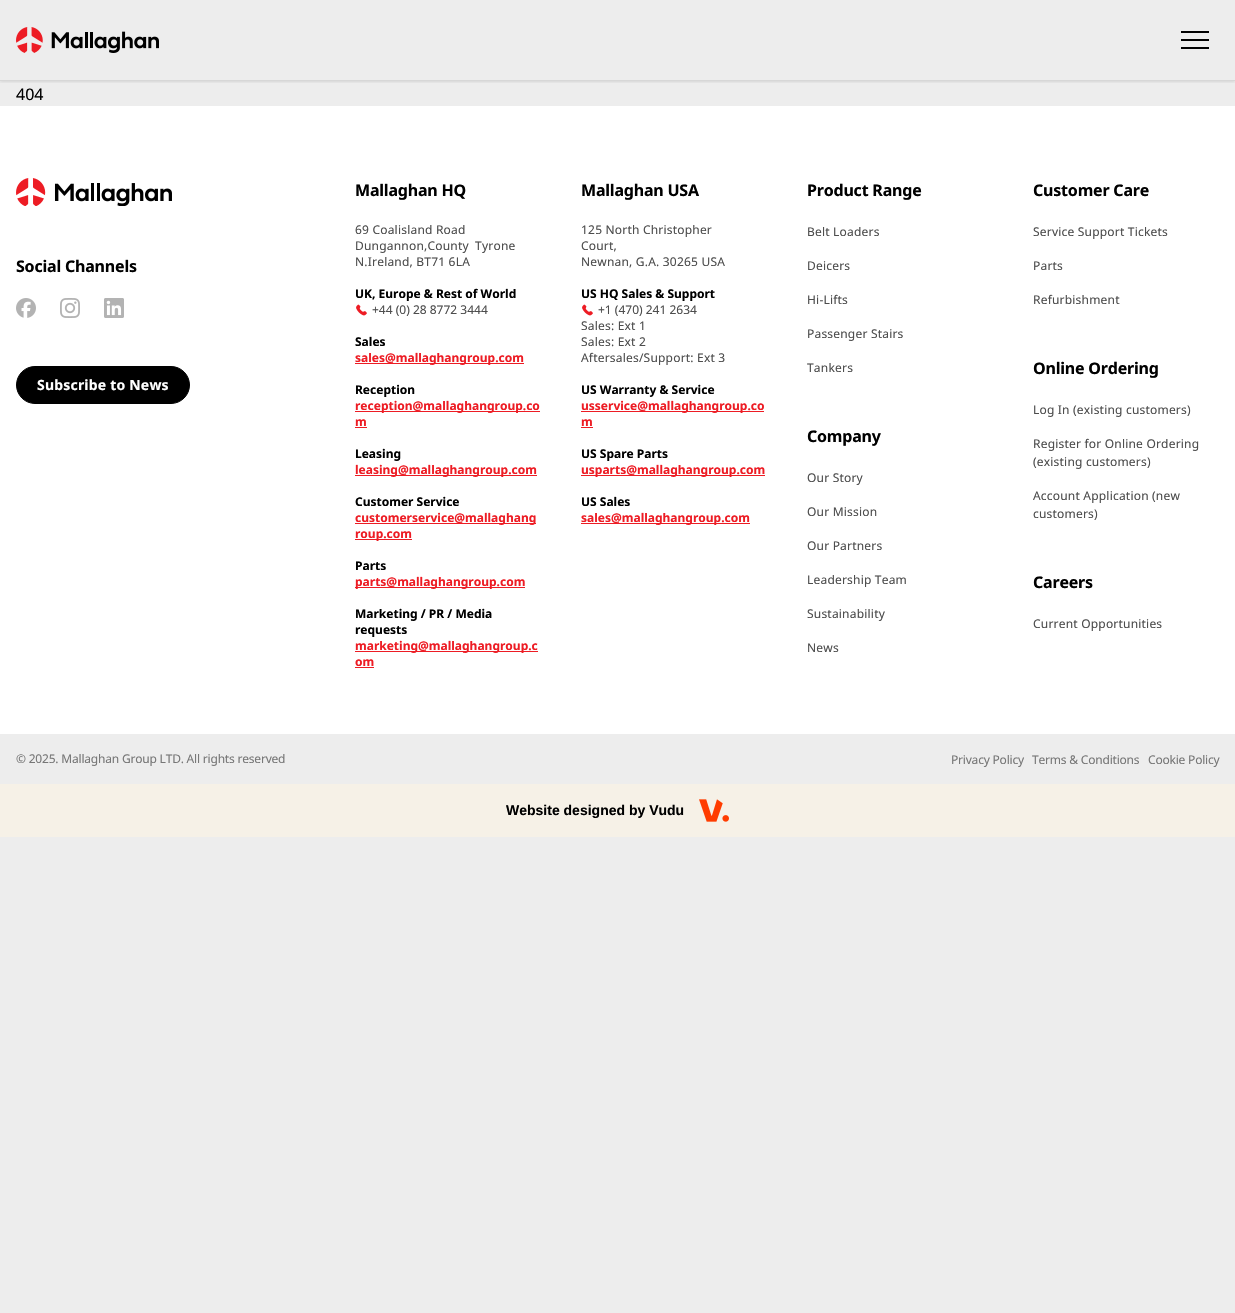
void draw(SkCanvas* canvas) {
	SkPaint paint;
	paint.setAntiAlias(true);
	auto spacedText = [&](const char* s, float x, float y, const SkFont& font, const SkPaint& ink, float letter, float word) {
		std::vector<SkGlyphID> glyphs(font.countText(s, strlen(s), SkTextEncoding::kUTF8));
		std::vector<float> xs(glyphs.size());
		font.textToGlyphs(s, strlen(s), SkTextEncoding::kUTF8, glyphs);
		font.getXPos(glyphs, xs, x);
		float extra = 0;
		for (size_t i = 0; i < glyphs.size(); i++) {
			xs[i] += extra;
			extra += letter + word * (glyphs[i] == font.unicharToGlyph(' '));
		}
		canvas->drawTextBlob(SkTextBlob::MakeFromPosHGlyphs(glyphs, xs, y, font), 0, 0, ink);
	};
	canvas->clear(0xffededed);
	canvas->save();
	canvas->clipRect(SkRect::MakeXYWH(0, 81, 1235, 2));
	paint.setColor(0x1a000000);
	paint.setMaskFilter(SkMaskFilter::MakeBlur(kNormal_SkBlurStyle, 1.5));
	canvas->drawRect(SkRect::MakeXYWH(0, 1, 1235, 81), paint);
	paint.setMaskFilter(nullptr);
	canvas->restore();
	paint.setColor(0xffd7d7d7);
	canvas->drawRect(SkRect::MakeXYWH(0, 80, 1235, 1), paint);
	canvas->drawImageRect(SkImages::DeferredFromEncodedData(SkData::MakeFromFileName("img1.png")), SkRect::MakeXYWH(16, 27, 143, 26), SkSamplingOptions());
	paint.setColor(0xff000000);
	canvas->drawRect(SkRect::MakeXYWH(1181, 31, 28, 2), paint);
	canvas->drawRect(SkRect::MakeXYWH(1181, 39, 28, 2), paint);
	canvas->drawRect(SkRect::MakeXYWH(1181, 47, 28, 2), paint);
	SkFont f1(fontMgr->matchFamilyStyle("Noto Sans", SkFontStyle::Normal()), 16);
	f1.setSubpixel(true);
	canvas->drawString("404", 16, 100, f1, paint);
	paint.setColor(0xffffffff);
	canvas->drawRect(SkRect::MakeXYWH(0, 106, 1235, 628), paint);
	canvas->drawImageRect(SkImages::DeferredFromEncodedData(SkData::MakeFromFileName("img2.png")), SkRect::MakeXYWH(16, 178, 156, 28), SkSamplingOptions());
	SkFont f2(fontMgr->matchFamilyStyle("Noto Sans", SkFontStyle::Bold()), 16);
	f2.setSubpixel(true);
	paint.setColor(0xff000000);
	spacedText("Social Channels", 16, 272, f2, paint, -0.2, 0);
	canvas->drawImageRect(SkImages::DeferredFromEncodedData(SkData::MakeFromFileName("img3.png")), SkRect::MakeXYWH(16, 298, 20, 20), SkSamplingOptions());
	canvas->drawImageRect(SkImages::DeferredFromEncodedData(SkData::MakeFromFileName("img4.png")), SkRect::MakeXYWH(60, 298, 20, 20), SkSamplingOptions());
	canvas->drawImageRect(SkImages::DeferredFromEncodedData(SkData::MakeFromFileName("img5.png")), SkRect::MakeXYWH(104, 298, 20, 20), SkSamplingOptions());
	canvas->drawRoundRect(SkRect::MakeXYWH(16.5, 366.5, 173, 37), 18.5, 18.5, paint);
	paint.setStroke(true);
	paint.setStrokeWidth(1);
	canvas->drawRoundRect(SkRect::MakeXYWH(16.5, 366.5, 173, 37), 18.5, 18.5, paint);
	SkFont f3(fontMgr->matchFamilyStyle("Noto Sans", SkFontStyle::Bold()), 14);
	f3.setSubpixel(true);
	paint.setStroke(false);
	paint.setColor(0xffffffff);
	spacedText("Subscribe to News", 37, 390, f3, paint, 0.2, 0);
	paint.setColor(0xff000000);
	spacedText("Mallaghan HQ", 355, 196, f2, paint, -0.2, 0);
	SkFont f4(fontMgr->matchFamilyStyle("Noto Sans", SkFontStyle::Normal()), 12);
	f4.setSubpixel(true);
	paint.setColor(0xff4d4d4d);
	spacedText("69 Coalisland Road", 355, 234, f4, paint, 0.2, 0);
	spacedText("Dungannon,County Tyrone", 355, 250, f4, paint, 0.2, 3);
	spacedText("N.Ireland, BT71 6LA", 355, 266, f4, paint, 0.2, 0);
	SkFont f5(fontMgr->matchFamilyStyle("Noto Sans", SkFontStyle::Bold()), 12);
	f5.setSubpixel(true);
	paint.setColor(0xff000000);
	canvas->drawString("UK, Europe & Rest of World", 355, 298, f5, paint);
	canvas->drawImageRect(SkImages::DeferredFromEncodedData(SkData::MakeFromFileName("img6.png")), SkRect::MakeXYWH(356, 304, 11, 12), SkSamplingOptions());
	paint.setColor(0xff4d4d4d);
	canvas->drawString("+44 (0) 28 8772 3444", 372, 314, f4, paint);
	paint.setColor(0xff000000);
	canvas->drawString("Sales", 355, 346, f5, paint);
	paint.setColor(0xffed1c24);
	canvas->drawRect(SkRect::MakeXYWH(355, 363, 169, 1), paint);
	canvas->drawString("sales@mallaghangroup.com", 355, 362, f5, paint);
	paint.setColor(0xff000000);
	canvas->drawString("Reception", 355, 394, f5, paint);
	paint.setColor(0xffed1c24);
	canvas->drawRect(SkRect::MakeXYWH(355, 411, 185, 1), paint);
	canvas->drawString("reception@mallaghangroup.co", 355, 410, f5, paint);
	canvas->drawString("m", 355, 426, f5, paint);
	canvas->drawRect(SkRect::MakeXYWH(355, 427, 12, 1), paint);
	paint.setColor(0xff000000);
	canvas->drawString("Leasing", 355, 458, f5, paint);
	paint.setColor(0xffed1c24);
	canvas->drawRect(SkRect::MakeXYWH(355, 475, 182, 1), paint);
	canvas->drawString("leasing@mallaghangroup.com", 355, 474, f5, paint);
	paint.setColor(0xff000000);
	canvas->drawString("Customer Service", 355, 506, f5, paint);
	paint.setColor(0xffed1c24);
	canvas->drawRect(SkRect::MakeXYWH(355, 523, 181, 1), paint);
	canvas->drawString("customerservice@mallaghang", 355, 522, f5, paint);
	canvas->drawRect(SkRect::MakeXYWH(355, 539, 57, 1), paint);
	canvas->drawString("roup.com", 355, 538, f5, paint);
	paint.setColor(0xff000000);
	canvas->drawString("Parts", 355, 570, f5, paint);
	paint.setColor(0xffed1c24);
	canvas->drawRect(SkRect::MakeXYWH(355, 587, 170, 1), paint);
	canvas->drawString("parts@mallaghangroup.com", 355, 586, f5, paint);
	paint.setColor(0xff000000);
	canvas->drawString("Marketing / PR / Media", 355, 618, f5, paint);
	canvas->drawString("requests", 355, 634, f5, paint);
	paint.setColor(0xffed1c24);
	canvas->drawRect(SkRect::MakeXYWH(355, 651, 183, 1), paint);
	canvas->drawString("marketing@mallaghangroup.c", 355, 650, f5, paint);
	canvas->drawString("om", 355, 666, f5, paint);
	canvas->drawRect(SkRect::MakeXYWH(355, 667, 19, 1), paint);
	paint.setColor(0xff000000);
	spacedText("Mallaghan USA", 581, 196, f2, paint, -0.2, 0);
	paint.setColor(0xff4d4d4d);
	spacedText("125 North Christopher", 581, 234, f4, paint, 0.2, 0);
	spacedText("Court,", 581, 250, f4, paint, 0.2, 0);
	spacedText("Newnan, G.A. 30265 USA", 581, 266, f4, paint, 0.2, 0);
	paint.setColor(0xff000000);
	canvas->drawString("US HQ Sales & Support", 581, 298, f5, paint);
	canvas->drawImageRect(SkImages::DeferredFromEncodedData(SkData::MakeFromFileName("img6.png")), SkRect::MakeXYWH(582, 304, 11, 12), SkSamplingOptions());
	paint.setColor(0xff4d4d4d);
	canvas->drawString("+1 (470) 241 2634", 598, 314, f4, paint);
	spacedText("Sales: Ext 1", 581, 330, f4, paint, 0.2, 0);
	spacedText("Sales: Ext 2", 581, 346, f4, paint, 0.2, 0);
	spacedText("Aftersales/Support: Ext 3", 581, 362, f4, paint, 0.2, 0);
	paint.setColor(0xff000000);
	canvas->drawString("US Warranty & Service", 581, 394, f5, paint);
	paint.setColor(0xffed1c24);
	canvas->drawRect(SkRect::MakeXYWH(581, 411, 183, 1), paint);
	canvas->drawString("usservice@mallaghangroup.co", 581, 410, f5, paint);
	canvas->drawString("m", 581, 426, f5, paint);
	canvas->drawRect(SkRect::MakeXYWH(581, 427, 12, 1), paint);
	paint.setColor(0xff000000);
	canvas->drawString("US Spare Parts", 581, 458, f5, paint);
	paint.setColor(0xffed1c24);
	canvas->drawRect(SkRect::MakeXYWH(581, 475, 184, 1), paint);
	canvas->drawString("usparts@mallaghangroup.com", 581, 474, f5, paint);
	paint.setColor(0xff000000);
	canvas->drawString("US Sales", 581, 506, f5, paint);
	paint.setColor(0xffed1c24);
	canvas->drawRect(SkRect::MakeXYWH(581, 523, 169, 1), paint);
	canvas->drawString("sales@mallaghangroup.com", 581, 522, f5, paint);
	paint.setColor(0xff000000);
	spacedText("Product Range", 807, 196, f2, paint, -0.2, 0);
	paint.setColor(0xff4d4d4d);
	spacedText("Belt Loaders", 807, 236, f4, paint, 0.2, 0);
	spacedText("Deicers", 807, 270, f4, paint, 0.2, 0);
	spacedText("Hi-Lifts", 807, 304, f4, paint, 0.2, 0);
	spacedText("Passenger Stairs", 807, 338, f4, paint, 0.2, 0);
	spacedText("Tankers", 807, 372, f4, paint, 0.2, 0);
	paint.setColor(0xff000000);
	spacedText("Company", 807, 442, f2, paint, -0.2, 0);
	paint.setColor(0xff4d4d4d);
	spacedText("Our Story", 807, 482, f4, paint, 0.2, 0);
	spacedText("Our Mission", 807, 516, f4, paint, 0.2, 0);
	spacedText("Our Partners", 807, 550, f4, paint, 0.2, 0);
	spacedText("Leadership Team", 807, 584, f4, paint, 0.2, 0);
	spacedText("Sustainability", 807, 618, f4, paint, 0.2, 0);
	spacedText("News", 807, 652, f4, paint, 0.2, 0);
	paint.setColor(0xff000000);
	spacedText("Customer Care", 1033, 196, f2, paint, -0.2, 0);
	paint.setColor(0xff4d4d4d);
	spacedText("Service Support Tickets", 1033, 236, f4, paint, 0.2, 0);
	spacedText("Parts", 1033, 270, f4, paint, 0.2, 0);
	spacedText("Refurbishment", 1033, 304, f4, paint, 0.2, 0);
	paint.setColor(0xff000000);
	spacedText("Online Ordering", 1033, 374, f2, paint, -0.2, 0);
	paint.setColor(0xff4d4d4d);
	spacedText("Log In (existing customers)", 1033, 414, f4, paint, 0.2, 0);
	spacedText("Register for Online Ordering", 1033, 448, f4, paint, 0.2, 0);
	spacedText("(existing customers)", 1033, 466, f4, paint, 0.2, 0);
	spacedText("Account Application (new", 1033, 500, f4, paint, 0.2, 0);
	spacedText("customers)", 1033, 518, f4, paint, 0.2, 0);
	paint.setColor(0xff000000);
	spacedText("Careers", 1033, 588, f2, paint, -0.2, 0);
	paint.setColor(0xff4d4d4d);
	spacedText("Current Opportunities", 1033, 628, f4, paint, 0.2, 0);
	paint.setColor(0xff777777);
	spacedText("© 2025. Mallaghan Group LTD. All rights reserved", 16, 763, f4, paint, -0.2, 0);
	spacedText("Privacy Policy", 951, 764, f4, paint, -0.2, 0);
	spacedText("Terms & Conditions", 1032, 764, f4, paint, -0.2, 0);
	spacedText("Cookie Policy", 1148, 764, f4, paint, -0.2, 0);
	paint.setColor(0xfff6f1e7);
	canvas->drawRect(SkRect::MakeXYWH(0, 784, 1235, 53), paint);
	SkFont f6(fontMgr->matchFamilyStyle("Liberation Sans", SkFontStyle::Bold()), 14);
	f6.setSubpixel(true);
	paint.setColor(0xff000000);
	canvas->drawString("Website designed by Vudu", 506, 815, f6, paint);
	canvas->drawImageRect(SkImages::DeferredFromEncodedData(SkData::MakeFromFileName("img7.png")), SkRect::MakeXYWH(699, 799, 30, 23), SkSamplingOptions());
}
